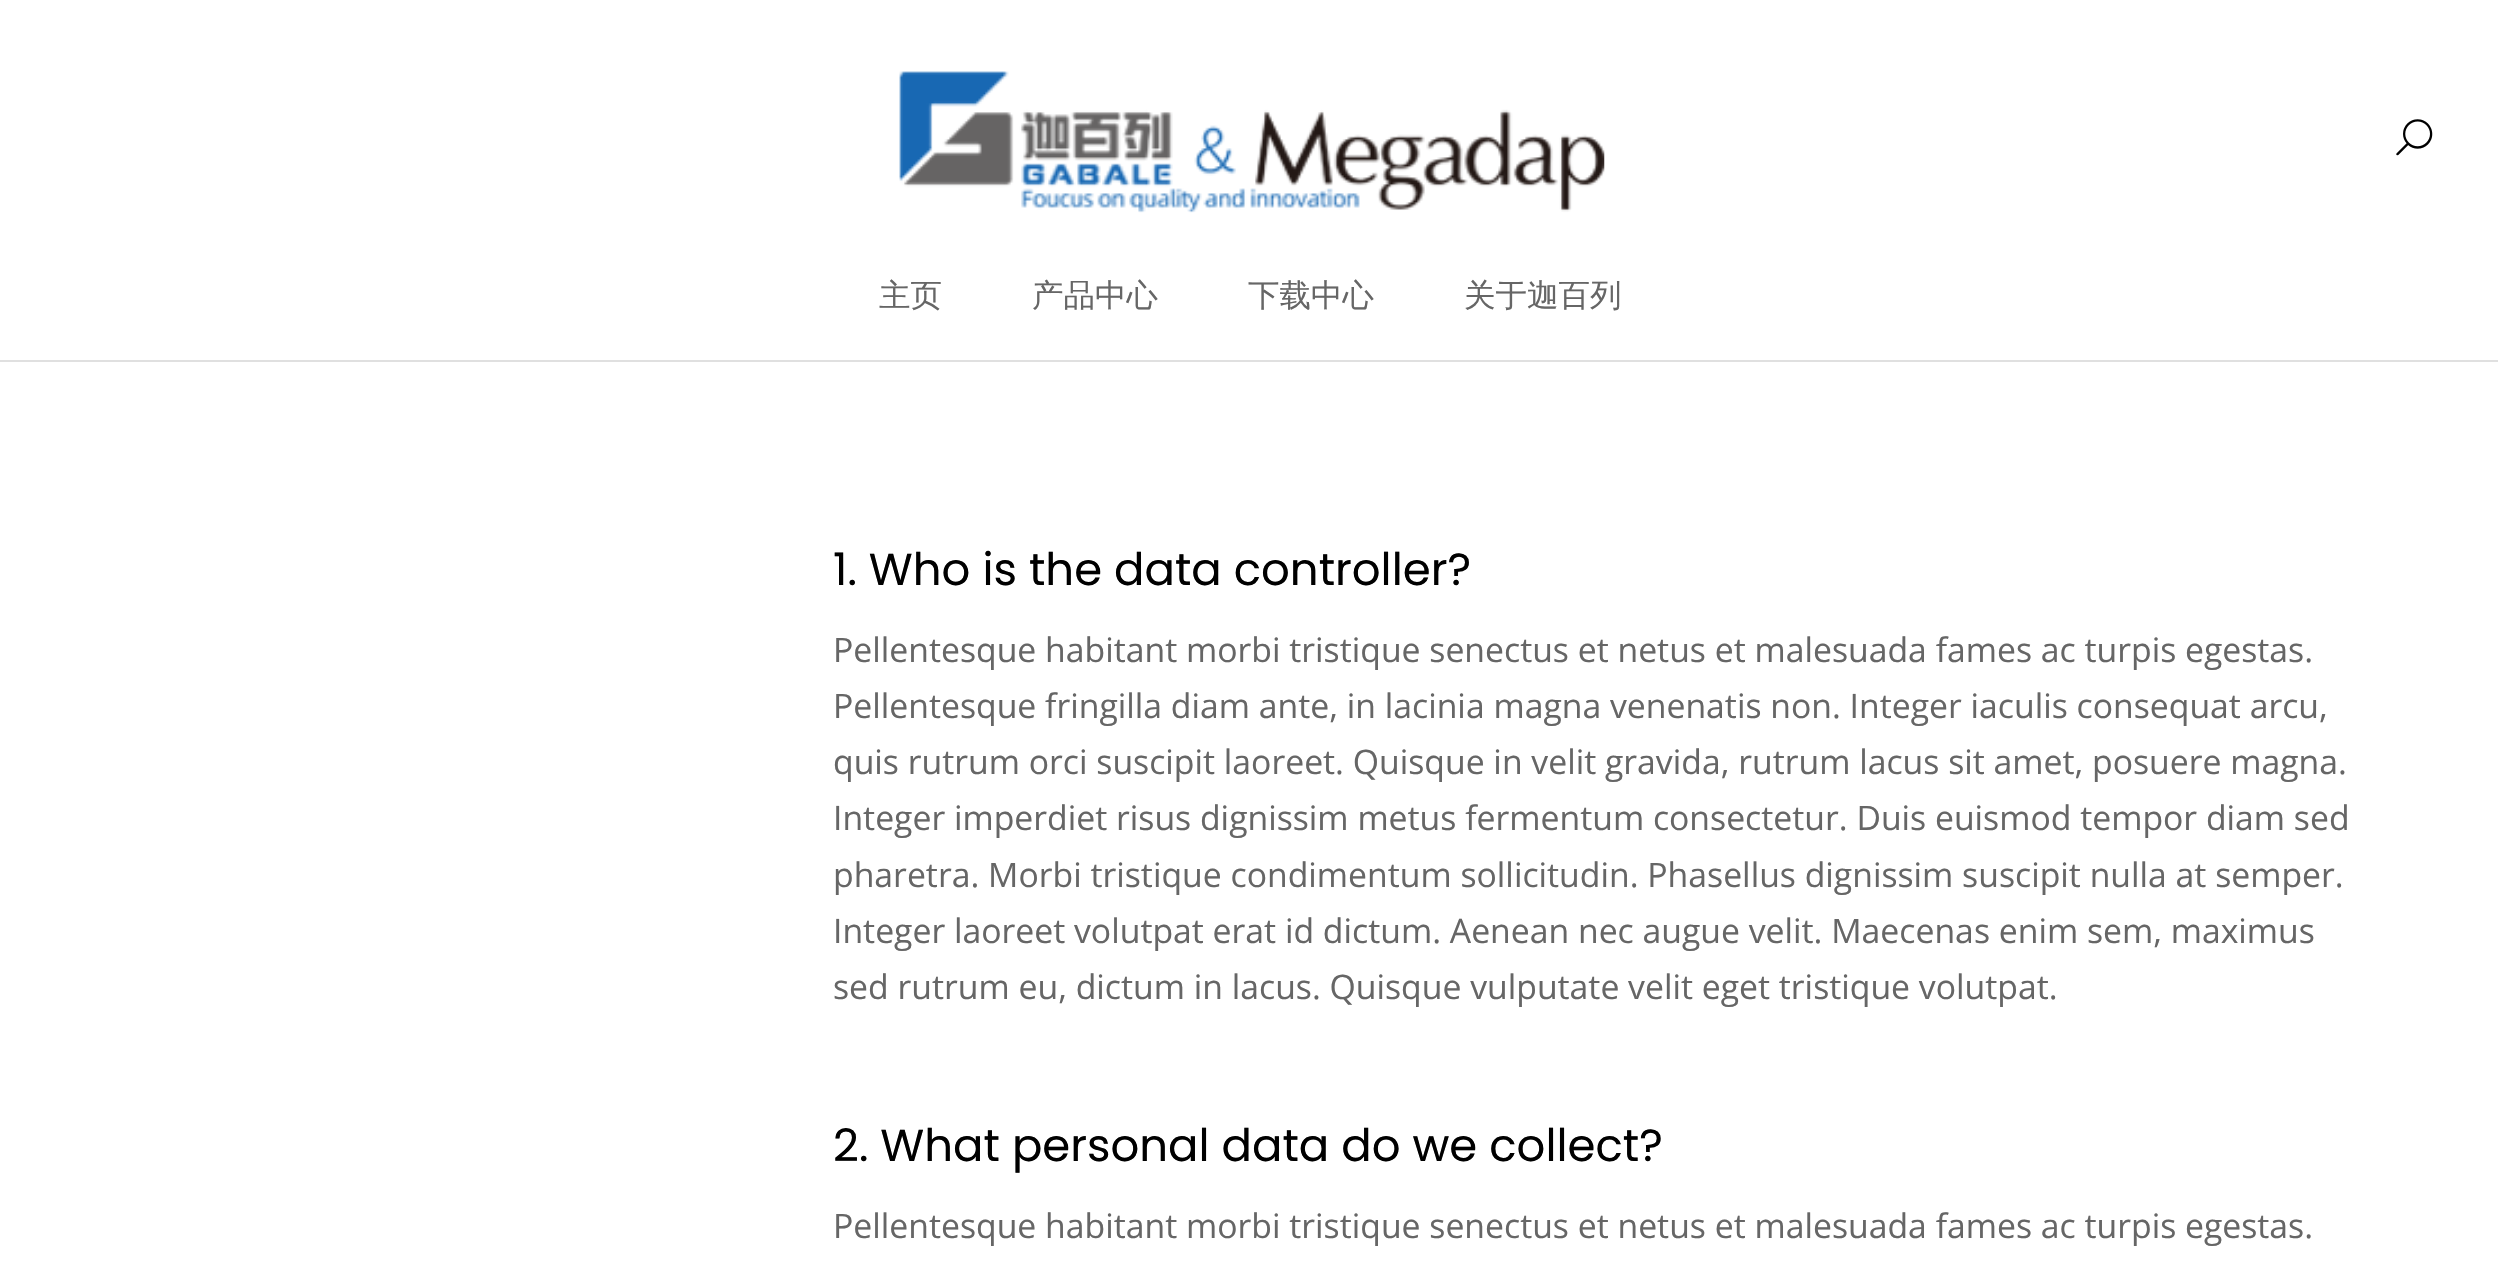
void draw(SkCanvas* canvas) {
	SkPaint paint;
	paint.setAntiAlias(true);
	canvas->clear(0xffffffff);
	paint.setColor(0xffe0e0e0);
	canvas->drawRect(SkRect::MakeXYWH(0, 360, 2498, 2), paint);
	canvas->drawImageRect(SkImages::DeferredFromEncodedData(SkData::MakeFromFileName("img1.png")), SkRect::MakeXYWH(899, 71, 706, 142), SkSamplingOptions());
	canvas->drawImageRect(SkImages::DeferredFromEncodedData(SkData::MakeFromFileName("img2.png")), SkRect::MakeXYWH(2396, 119, 37, 37), SkSamplingOptions());
	SkFont f1(fontMgr->matchFamilyStyle("WenQuanYi Zen Hei", SkFontStyle(500, SkFontStyle::kNormal_Width, SkFontStyle::kUpright_Slant)), 31.5);
	f1.setSubpixel(true);
	paint.setColor(0xff666666);
	canvas->drawString("主页", 879, 306, f1, paint);
	canvas->drawString("产品中心", 1032, 306, f1, paint);
	canvas->drawString("下载中心", 1248, 306, f1, paint);
	canvas->drawString("关于迦百列", 1464, 306, f1, paint);
	SkFont f2(fontMgr->matchFamilyStyle("Poppins", SkFontStyle::Normal()), 45);
	f2.setSubpixel(true);
	paint.setColor(0xff000000);
	canvas->drawString("1. Who is the data controller?", 833, 585, f2, paint);
	SkFont f3(fontMgr->matchFamilyStyle("Open Sans", SkFontStyle::Normal()), 33.75);
	f3.setSubpixel(true);
	paint.setColor(0xff666666);
	canvas->drawString("Pellentesque habitant morbi tristique senectus et netus et malesuada fames ac turpis egestas.", 833, 662, f3, paint);
	canvas->drawString("Pellentesque fringilla diam ante, in lacinia magna venenatis non. Integer iaculis consequat arcu,", 833, 718, f3, paint);
	canvas->drawString("quis rutrum orci suscipit laoreet. Quisque in velit gravida, rutrum lacus sit amet, posuere magna.", 833, 774, f3, paint);
	canvas->drawString("Integer imperdiet risus dignissim metus fermentum consectetur. Duis euismod tempor diam sed", 833, 830, f3, paint);
	canvas->drawString("pharetra. Morbi tristique condimentum sollicitudin. Phasellus dignissim suscipit nulla at semper.", 833, 887, f3, paint);
	canvas->drawString("Integer laoreet volutpat erat id dictum. Aenean nec augue velit. Maecenas enim sem, maximus", 833, 943, f3, paint);
	canvas->drawString("sed rutrum eu, dictum in lacus. Quisque vulputate velit eget tristique volutpat.", 833, 999, f3, paint);
	paint.setColor(0xff000000);
	canvas->drawString("2. What personal data do we collect?", 833, 1161, f2, paint);
	paint.setColor(0xff666666);
	canvas->drawString("Pellentesque habitant morbi tristique senectus et netus et malesuada fames ac turpis egestas.", 833, 1238, f3, paint);
}
